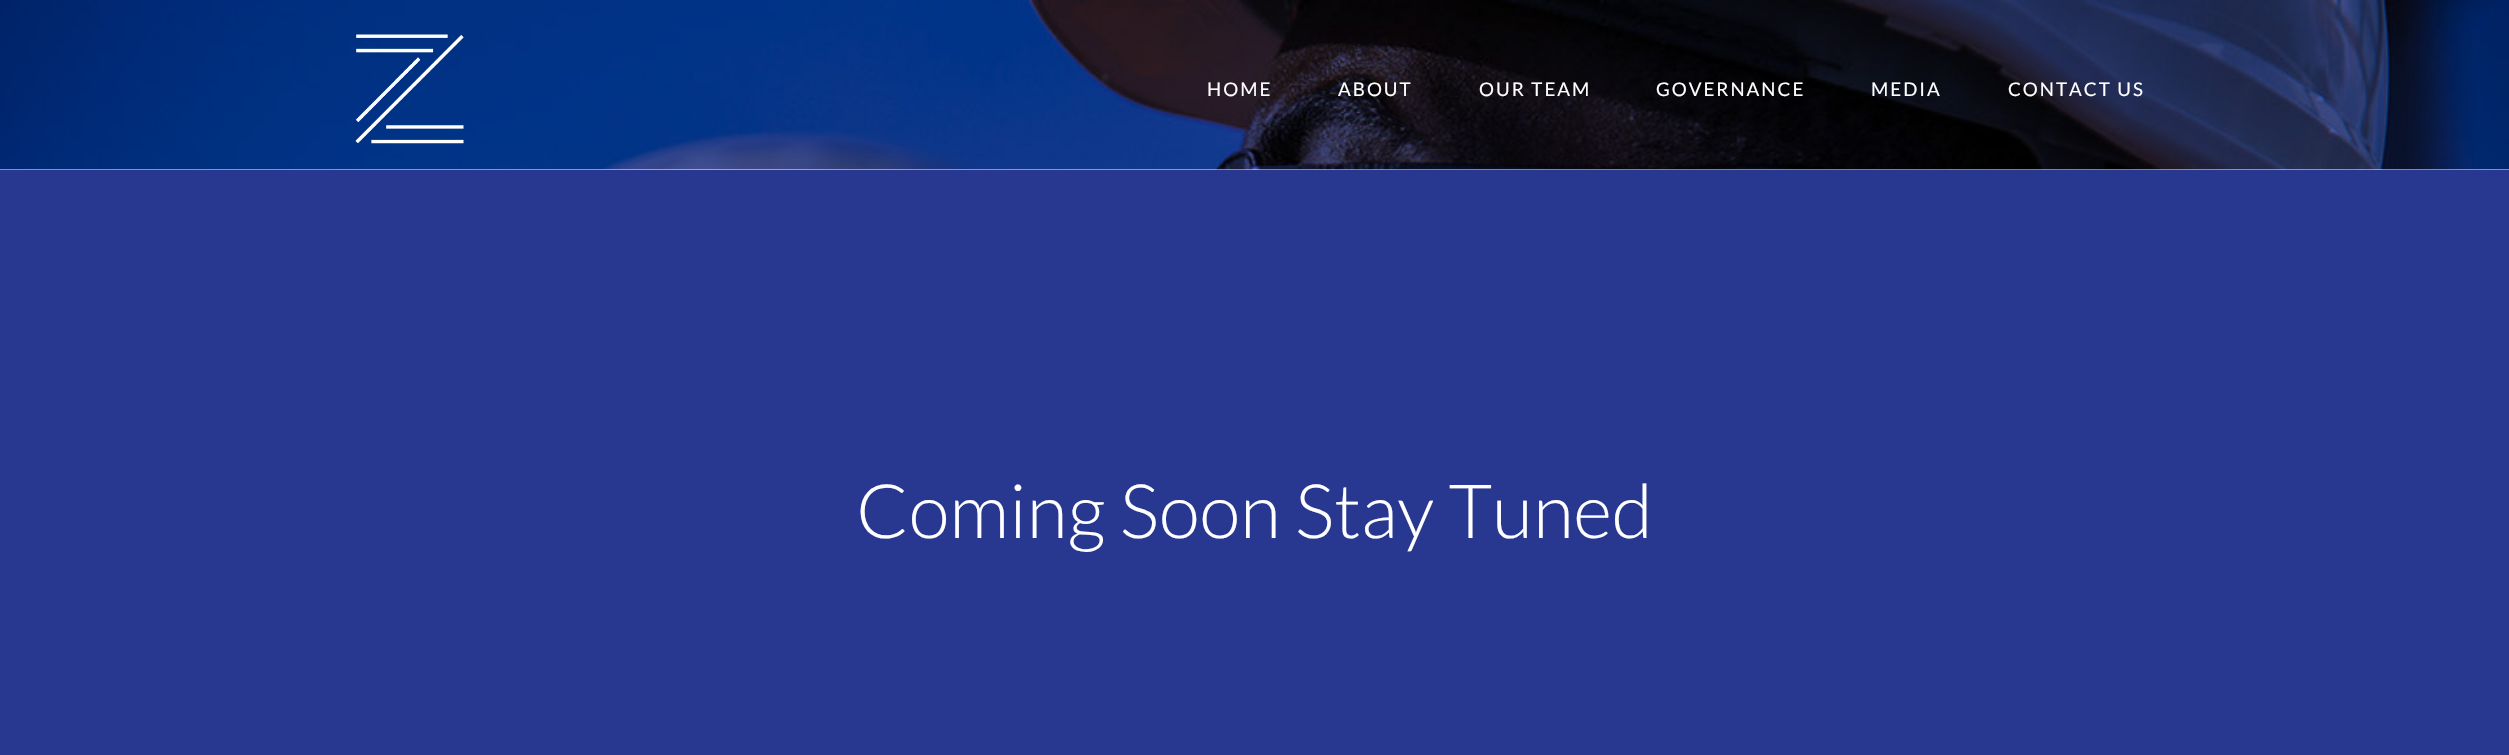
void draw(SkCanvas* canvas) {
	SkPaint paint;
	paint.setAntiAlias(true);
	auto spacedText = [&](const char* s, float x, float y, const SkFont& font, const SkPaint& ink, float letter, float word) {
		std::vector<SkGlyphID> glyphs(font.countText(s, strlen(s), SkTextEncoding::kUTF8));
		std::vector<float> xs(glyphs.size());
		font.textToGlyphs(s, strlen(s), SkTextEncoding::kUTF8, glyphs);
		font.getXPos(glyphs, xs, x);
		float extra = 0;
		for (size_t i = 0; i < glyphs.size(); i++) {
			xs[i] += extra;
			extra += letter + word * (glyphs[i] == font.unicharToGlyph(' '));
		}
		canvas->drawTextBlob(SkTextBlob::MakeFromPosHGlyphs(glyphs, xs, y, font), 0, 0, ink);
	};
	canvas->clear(0xffffffff);
	canvas->drawImageRect(SkImages::DeferredFromEncodedData(SkData::MakeFromFileName("img2.png")), SkRect::MakeXYWH(0, 0, 2509, 170), SkSamplingOptions());
	canvas->drawImageRect(SkImages::DeferredFromEncodedData(SkData::MakeFromFileName("img1.png")), SkRect::MakeXYWH(355, 34, 109, 110), SkSamplingOptions());
	SkFont f1(fontMgr->matchFamilyStyle("Lato", SkFontStyle::Normal()), 18.75);
	f1.setSubpixel(true);
	paint.setColor(0xffffffff);
	spacedText("HOME", 1207, 96, f1, paint, 2, 0);
	spacedText("ABOUT", 1338, 96, f1, paint, 2, 0);
	spacedText("OUR TEAM", 1479, 96, f1, paint, 2, 0);
	spacedText("GOVERNANCE", 1656, 96, f1, paint, 2, 0);
	spacedText("MEDIA", 1871, 96, f1, paint, 2, 0);
	spacedText("CONTACT US", 2008, 96, f1, paint, 2, 0);
	paint.setColor(0xff283891);
	canvas->drawRect(SkRect::MakeXYWH(0, 170, 2509, 585), paint);
	SkFont f2(fontMgr->matchFamilyStyle("Lato", SkFontStyle(300, SkFontStyle::kNormal_Width, SkFontStyle::kUpright_Slant)), 75);
	f2.setSubpixel(true);
	paint.setColor(0xffffffff);
	canvas->drawString("Coming Soon Stay Tuned", 856, 538, f2, paint);
}
